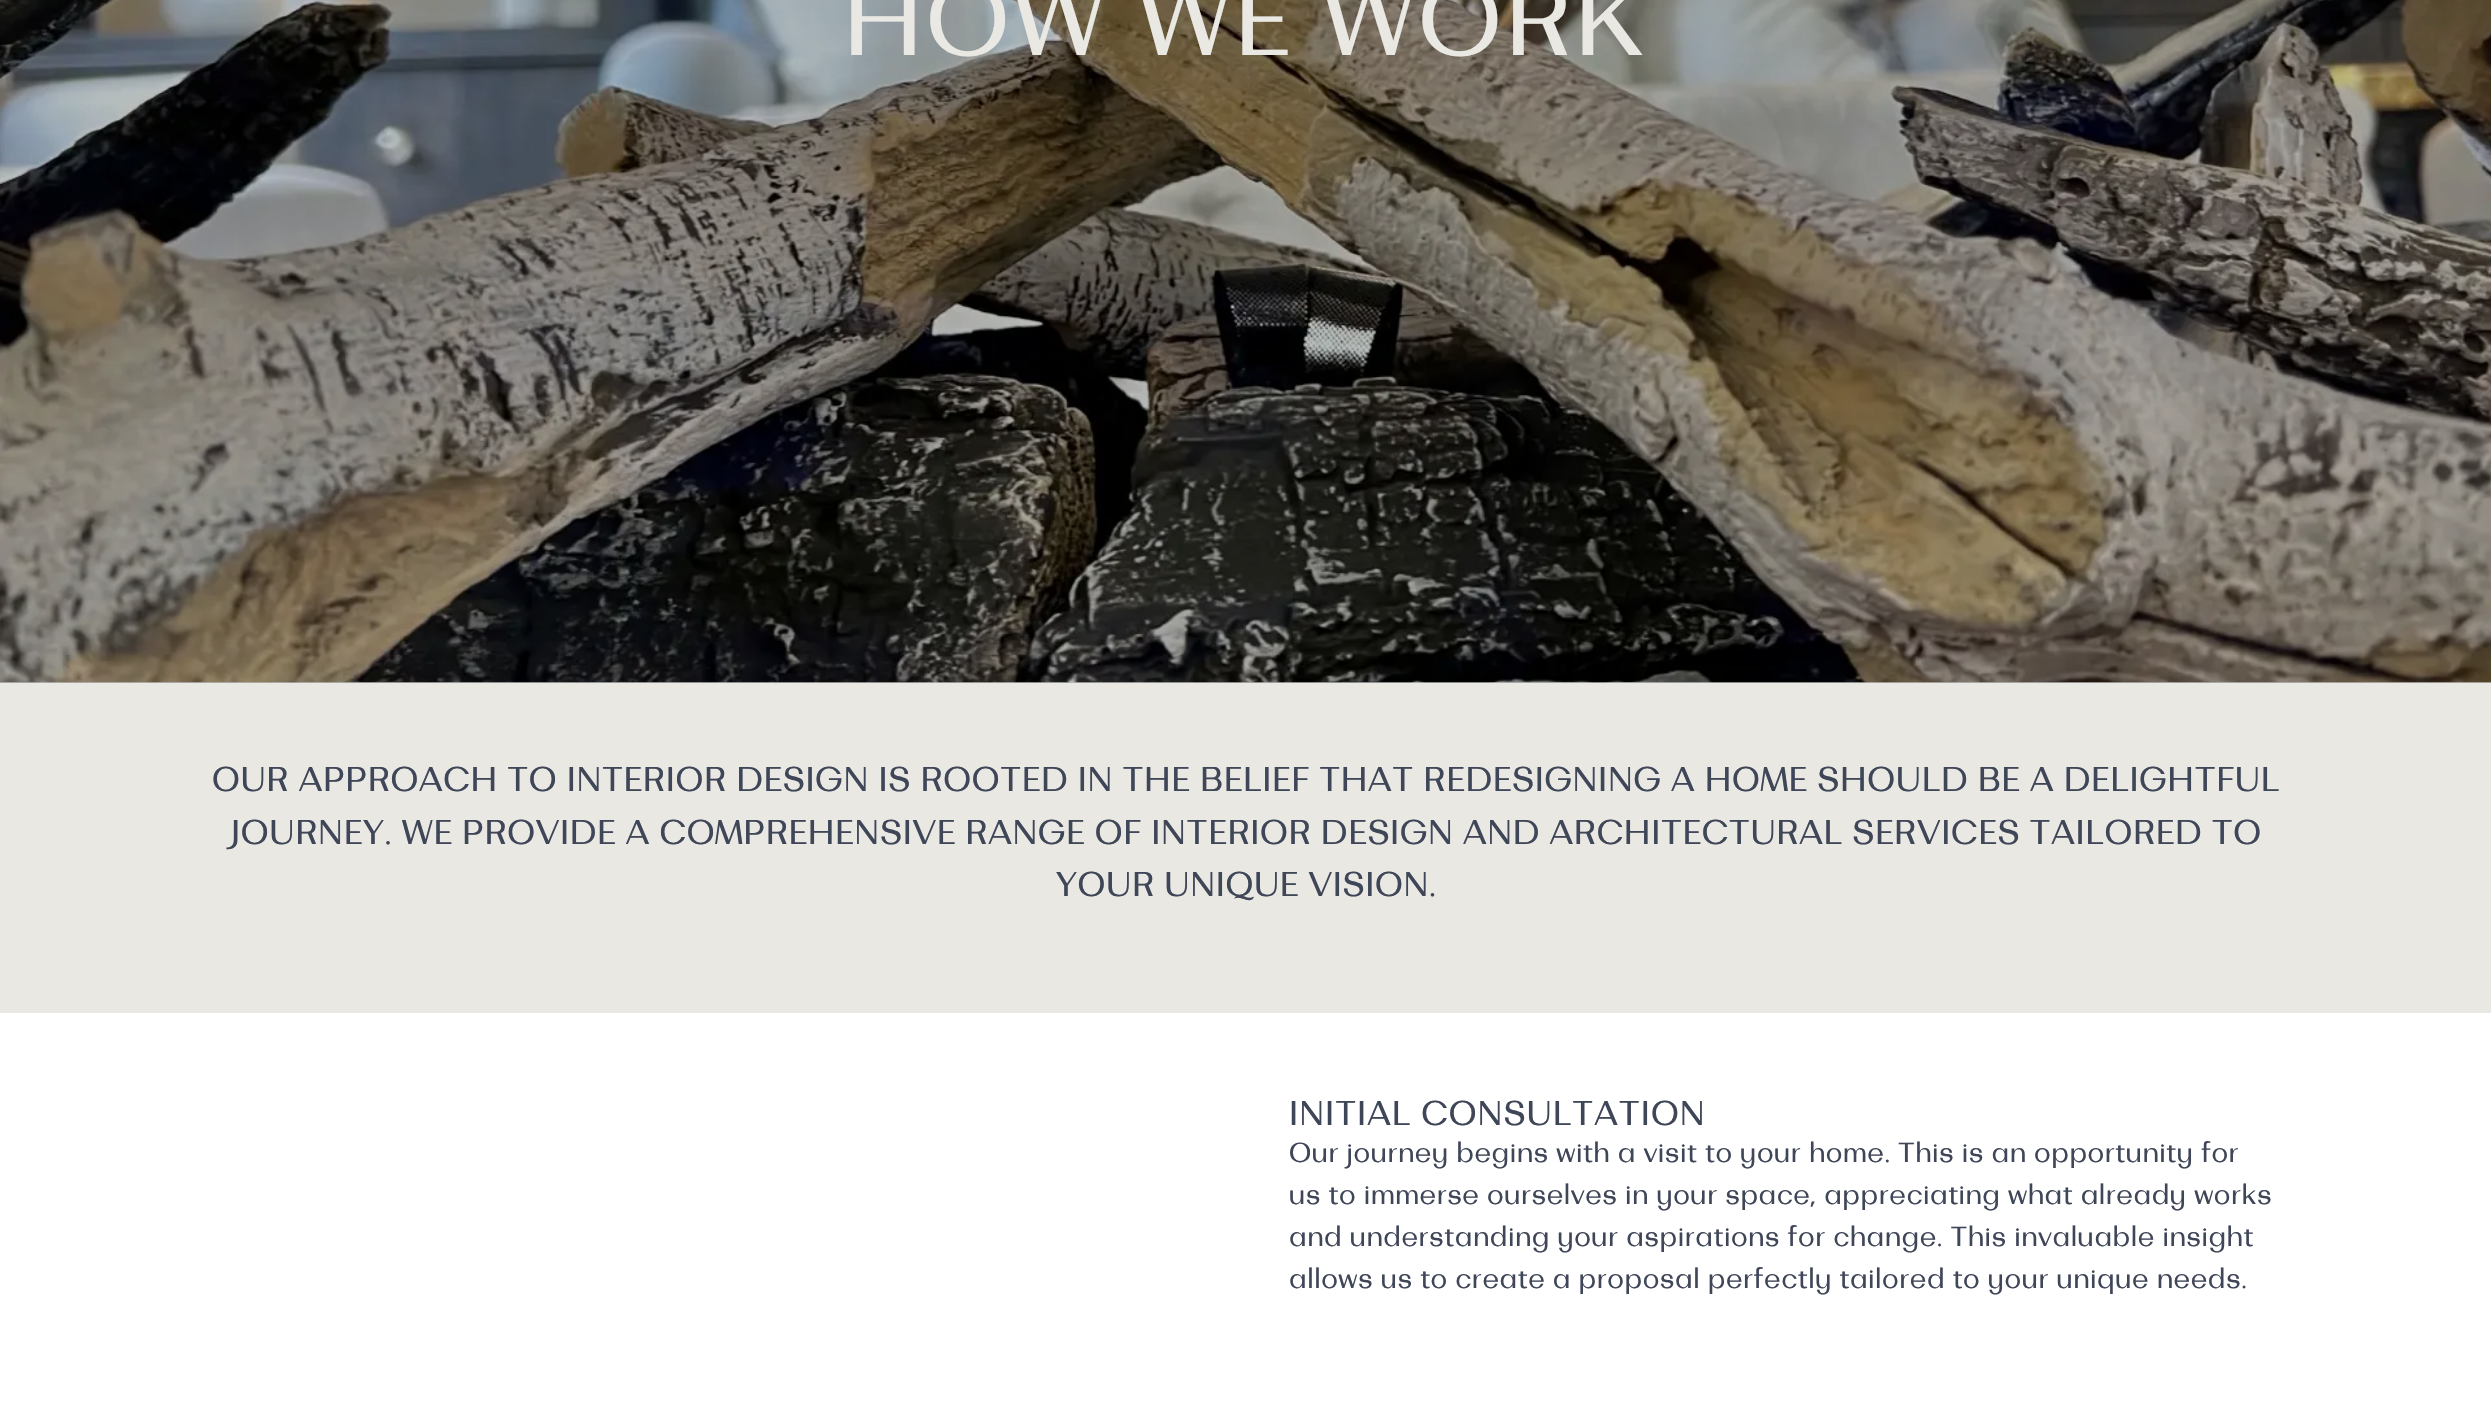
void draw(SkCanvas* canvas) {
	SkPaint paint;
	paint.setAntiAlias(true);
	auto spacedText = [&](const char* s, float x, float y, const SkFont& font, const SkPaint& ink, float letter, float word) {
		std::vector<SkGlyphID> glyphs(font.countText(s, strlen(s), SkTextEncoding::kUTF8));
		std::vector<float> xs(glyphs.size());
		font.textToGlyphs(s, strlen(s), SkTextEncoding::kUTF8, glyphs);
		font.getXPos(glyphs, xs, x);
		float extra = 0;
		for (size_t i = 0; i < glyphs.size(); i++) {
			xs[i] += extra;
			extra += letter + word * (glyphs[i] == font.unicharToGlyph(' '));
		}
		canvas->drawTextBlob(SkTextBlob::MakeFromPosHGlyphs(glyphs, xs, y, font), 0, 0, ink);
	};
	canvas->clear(0xffffffff);
	paint.setColor(0xffb6b8ba);
	canvas->drawRect(SkRect::MakeXYWH(0, 682, 2491, 1), paint);
	canvas->drawImageRect(SkImages::DeferredFromEncodedData(SkData::MakeFromFileName("img1.png")), SkRect::MakeXYWH(0, 0, 2491, 683), SkSamplingOptions());
	SkFont f1(fontMgr->matchFamilyStyle("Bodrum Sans", SkFontStyle::Normal()), 105);
	f1.setSubpixel(true);
	paint.setColor(0xffe9e8e3);
	spacedText("HOW WE WORK", 843, 55, f1, paint, 3.1, 0);
	canvas->drawRect(SkRect::MakeXYWH(0, 683, 2491, 330), paint);
	SkFont f2(fontMgr->matchFamilyStyle("Bodrum Sans", SkFontStyle::Normal()), 35);
	f2.setSubpixel(true);
	paint.setColor(0xff3f4658);
	spacedText("OUR APPROACH TO INTERIOR DESIGN IS ROOTED IN THE BELIEF THAT REDESIGNING A HOME SHOULD BE A DELIGHTFUL", 212, 791, f2, paint, 0.7, 0);
	spacedText("JOURNEY. WE PROVIDE A COMPREHENSIVE RANGE OF INTERIOR DESIGN AND ARCHITECTURAL SERVICES TAILORED TO", 230, 844, f2, paint, 0.7, 0);
	spacedText("YOUR UNIQUE VISION.", 1056, 896, f2, paint, 0.7, 0);
	spacedText("INITIAL CONSULTATION", 1289, 1125, f2, paint, 1.05, 0);
	SkFont f3(fontMgr->matchFamilyStyle("Bodrum Sans", SkFontStyle::Normal()), 28);
	f3.setSubpixel(true);
	spacedText("Our journey begins with a visit to your home. This is an opportunity for", 1289, 1162, f3, paint, 0.55, 0);
	spacedText("us to immerse ourselves in your space, appreciating what already works", 1289, 1204, f3, paint, 0.55, 0);
	spacedText("and understanding your aspirations for change. This invaluable insight", 1289, 1246, f3, paint, 0.55, 0);
	spacedText("allows us to create a proposal perfectly tailored to your unique needs.", 1289, 1288, f3, paint, 0.55, 0);
}
